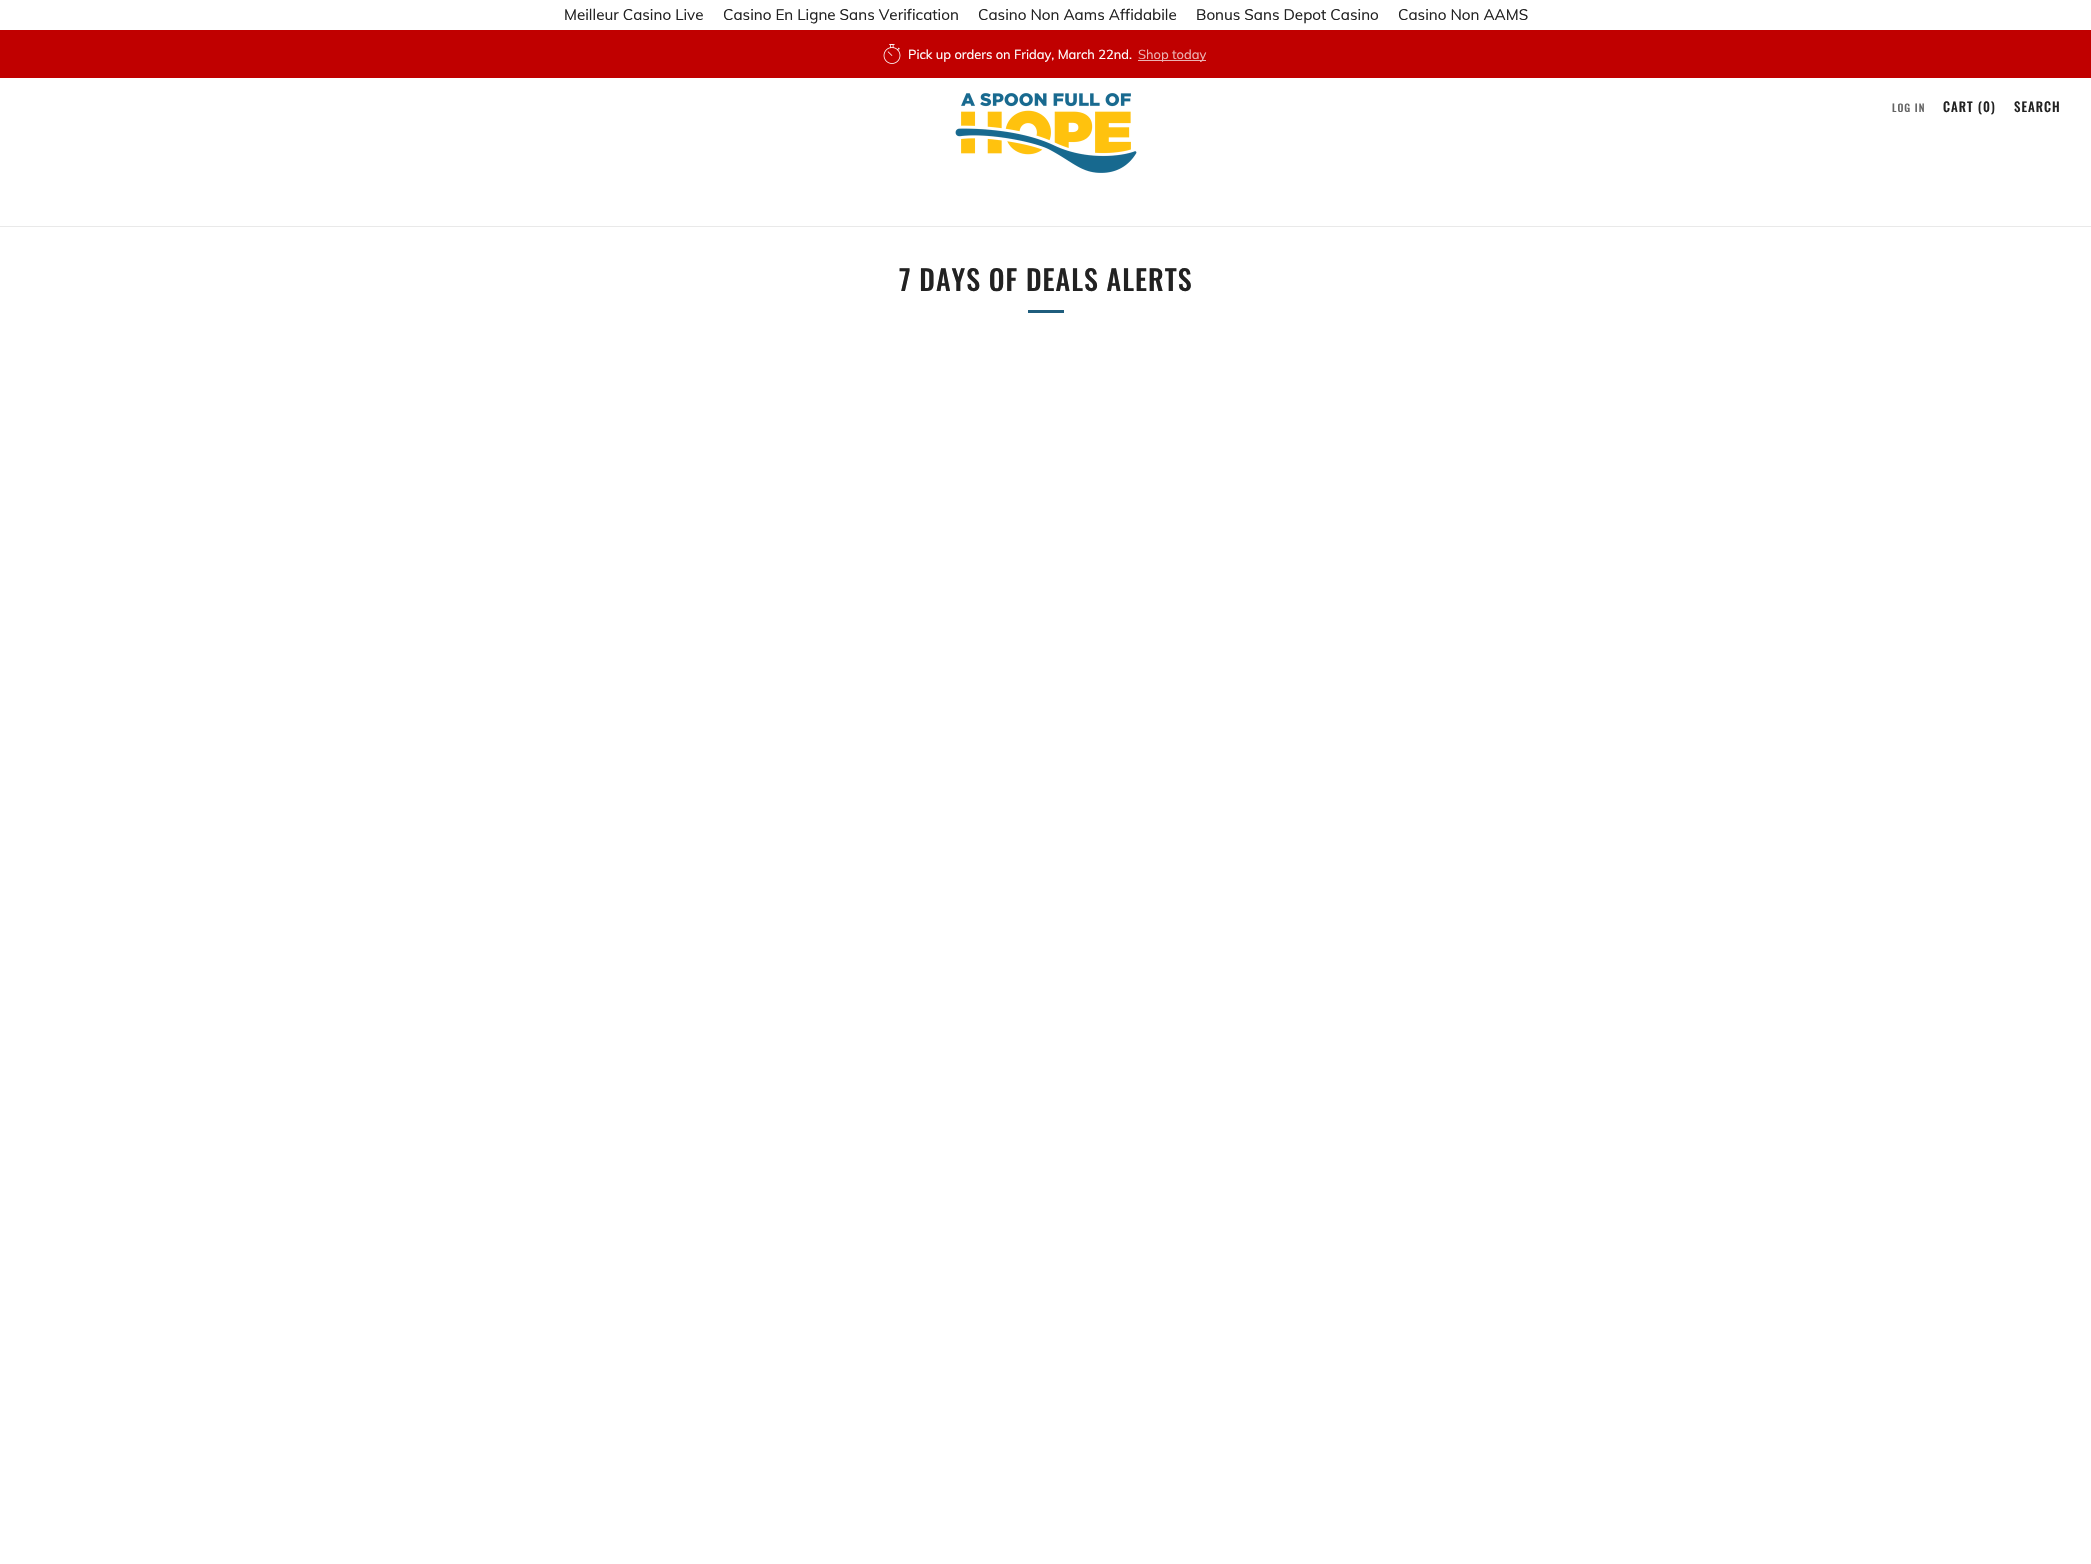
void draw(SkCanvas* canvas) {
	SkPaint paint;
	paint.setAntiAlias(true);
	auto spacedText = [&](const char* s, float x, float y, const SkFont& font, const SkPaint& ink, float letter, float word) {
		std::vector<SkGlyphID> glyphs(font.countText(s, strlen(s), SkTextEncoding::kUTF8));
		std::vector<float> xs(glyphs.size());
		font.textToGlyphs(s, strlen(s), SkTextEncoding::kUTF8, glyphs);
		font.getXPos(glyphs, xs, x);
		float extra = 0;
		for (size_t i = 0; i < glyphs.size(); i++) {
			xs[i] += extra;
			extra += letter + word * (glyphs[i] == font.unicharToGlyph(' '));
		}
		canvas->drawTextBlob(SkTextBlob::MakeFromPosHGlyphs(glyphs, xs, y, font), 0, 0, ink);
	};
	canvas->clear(0xffffffff);
	SkFont f1(fontMgr->matchFamilyStyle("Muli", SkFontStyle::Normal()), 15.25);
	f1.setSubpixel(true);
	paint.setColor(0xff222222);
	canvas->drawString("Meilleur Casino Live", 564, 20, f1, paint);
	canvas->drawString("Casino En Ligne Sans Verification", 723, 20, f1, paint);
	canvas->drawString("Casino Non Aams Affidabile", 978, 20, f1, paint);
	canvas->drawString("Bonus Sans Depot Casino", 1196, 20, f1, paint);
	canvas->drawString("Casino Non AAMS", 1398, 20, f1, paint);
	paint.setColor(0xffc00000);
	canvas->drawRect(SkRect::MakeXYWH(0, 30, 2091, 48), paint);
	canvas->drawImageRect(SkImages::DeferredFromEncodedData(SkData::MakeFromFileName("img1.png")), SkRect::MakeXYWH(883, 44, 18, 20), SkSamplingOptions());
	SkFont f2(fontMgr->matchFamilyStyle("Muli", SkFontStyle::Normal()), 12.9);
	f2.setSubpixel(true);
	paint.setColor(0xffffffff);
	canvas->drawString("Pick up orders on Friday, March 22nd.", 908, 59, f2, paint);
	paint.setColor(0xffecb3b3);
	canvas->drawRect(SkRect::MakeXYWH(1138, 60, 68, 1), paint);
	canvas->drawString("Shop today", 1138, 59, f2, paint);
	paint.setColor(0xffe9e9e9);
	canvas->drawRect(SkRect::MakeXYWH(0, 226, 2091, 1), paint);
	canvas->drawImageRect(SkImages::DeferredFromEncodedData(SkData::MakeFromFileName("img2.png")), SkRect::MakeXYWH(955, 93, 182, 80), SkSamplingOptions());
	SkFont f3(fontMgr->matchFamilyStyle("Oswald", SkFontStyle(500, SkFontStyle::kNormal_Width, SkFontStyle::kUpright_Slant)), 10.5);
	f3.setSubpixel(true);
	paint.setColor(0xff646464);
	spacedText("LOG IN", 1892, 112, f3, paint, 1, 0);
	SkFont f4(fontMgr->matchFamilyStyle("Oswald", SkFontStyle(500, SkFontStyle::kNormal_Width, SkFontStyle::kUpright_Slant)), 13);
	f4.setSubpixel(true);
	paint.setColor(0xff222222);
	spacedText("CART (0)", 1943, 112, f4, paint, 1, 0);
	spacedText("SEARCH", 2014, 112, f4, paint, 1, 0);
	SkFont f5(fontMgr->matchFamilyStyle("Oswald", SkFontStyle(500, SkFontStyle::kNormal_Width, SkFontStyle::kUpright_Slant)), 28);
	f5.setSubpixel(true);
	spacedText("7 DAYS OF DEALS ALERTS", 899, 291, f5, paint, 1, 0);
	paint.setColor(0xff1f5d7d);
	canvas->drawRect(SkRect::MakeXYWH(1028, 310, 36, 3), paint);
}
